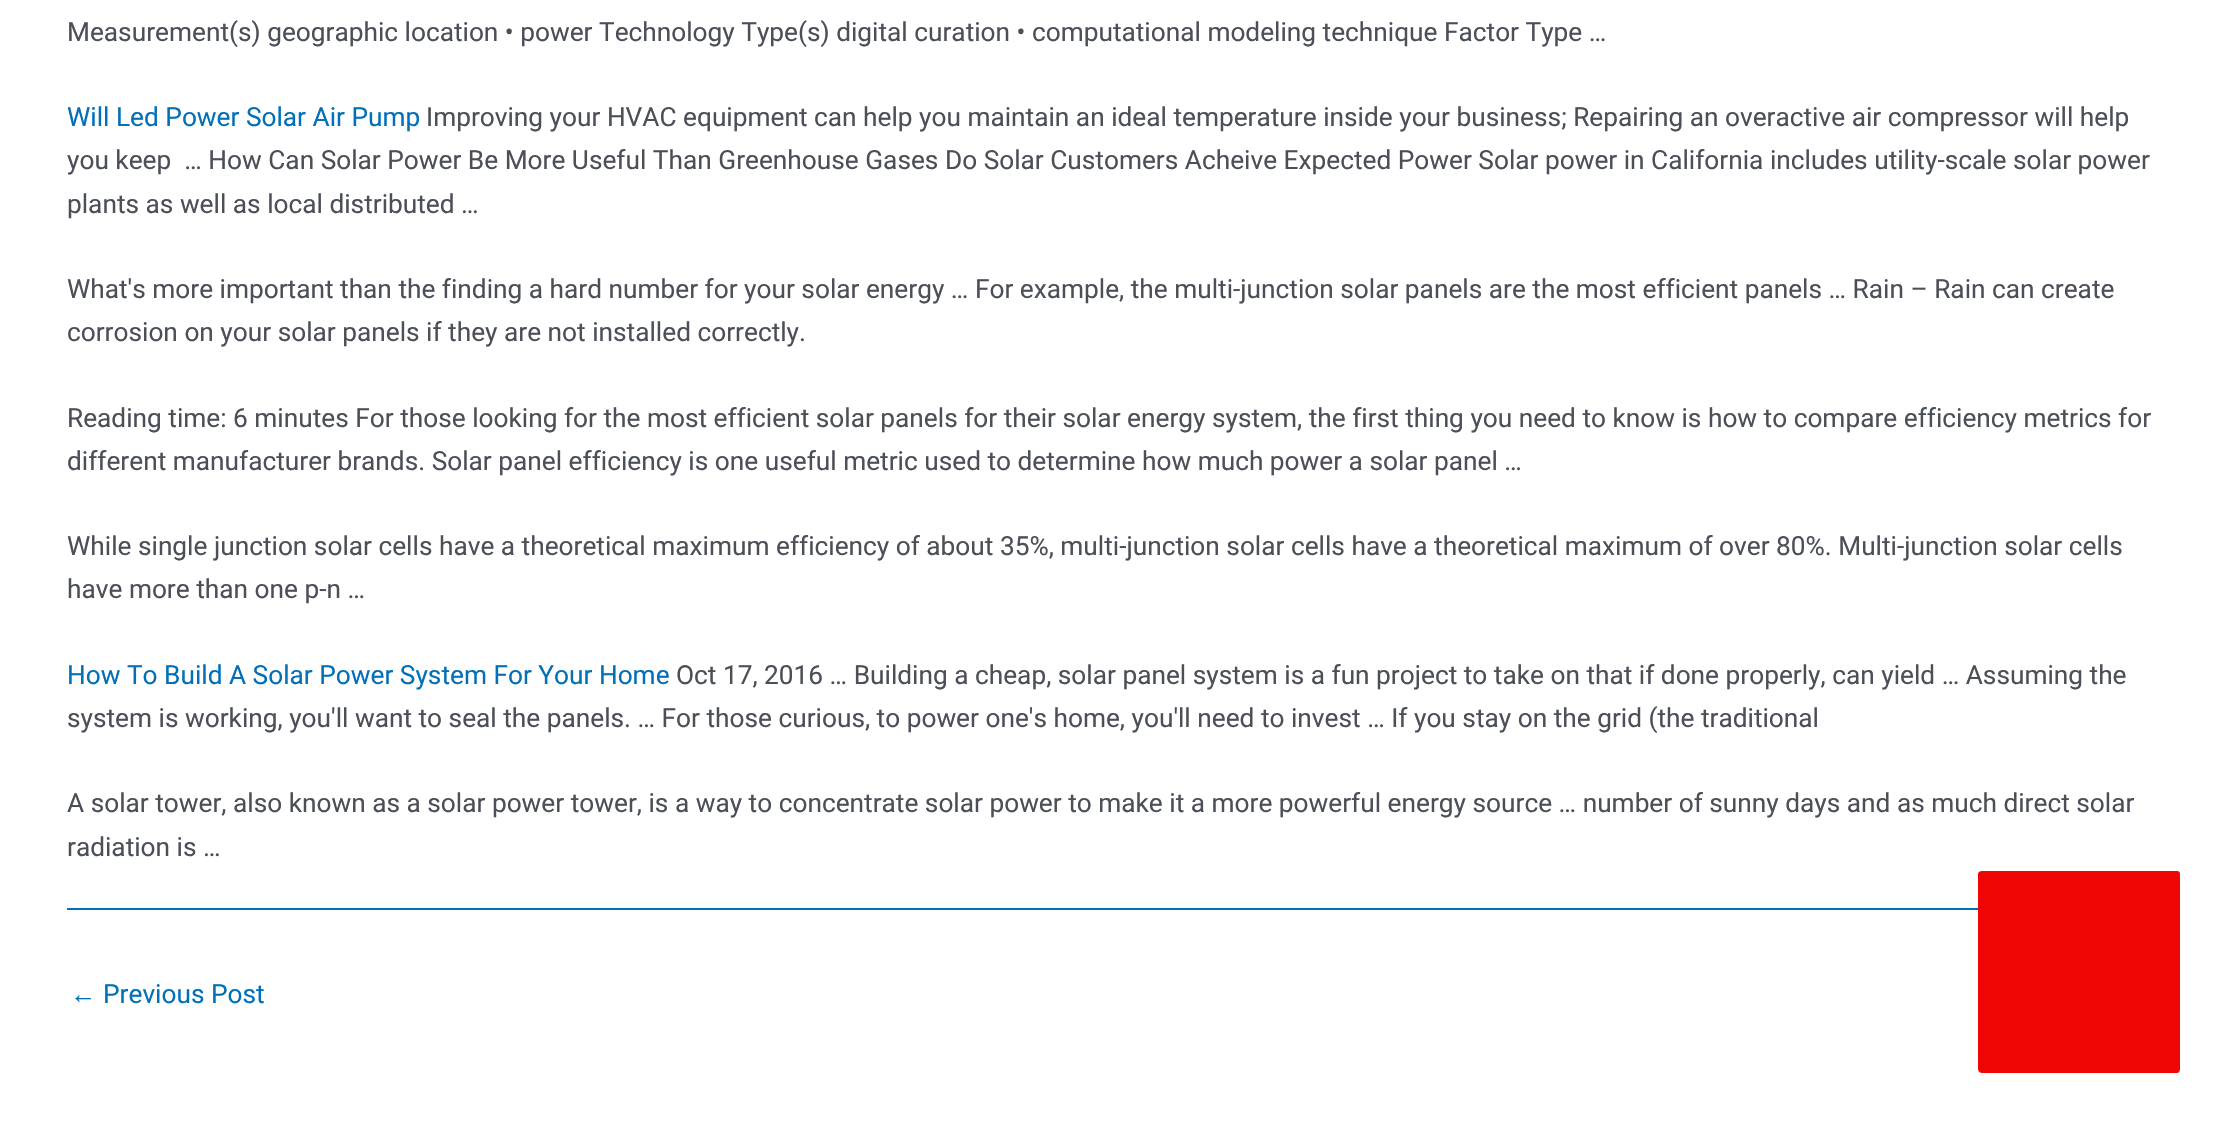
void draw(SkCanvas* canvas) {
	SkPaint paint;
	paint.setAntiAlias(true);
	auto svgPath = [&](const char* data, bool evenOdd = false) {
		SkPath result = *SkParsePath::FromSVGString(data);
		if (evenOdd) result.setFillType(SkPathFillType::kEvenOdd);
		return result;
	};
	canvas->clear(0xffffffff);
	SkFont f1(fontMgr->matchFamilyStyle("Roboto", SkFontStyle::Normal()), 26.25);
	f1.setSubpixel(true);
	paint.setColor(0xff4b4f58);
	canvas->drawString("Measurement(s) geographic location • power Technology Type(s) digital curation • computational modeling technique Factor Type …", 67, 41, f1, paint);
	paint.setColor(0xff0170b9);
	canvas->drawString("Will Led Power Solar Air Pump", 67, 126, f1, paint);
	paint.setColor(0xff4b4f58);
	canvas->drawString("Improving your HVAC equipment can help you maintain an ideal temperature inside your business; Repairing an overactive air compressor will help", 426, 126, f1, paint);
	canvas->drawString("you keep  … How Can Solar Power Be More Useful Than Greenhouse Gases Do Solar Customers Acheive Expected Power Solar power in California includes utility-scale solar power", 67, 169, f1, paint);
	canvas->drawString("plants as well as local distributed …", 67, 213, f1, paint);
	canvas->drawString("What's more important than the finding a hard number for your solar energy … For example, the multi-junction solar panels are the most efficient panels … Rain – Rain can create", 67, 298, f1, paint);
	canvas->drawString("corrosion on your solar panels if they are not installed correctly.", 67, 341, f1, paint);
	canvas->drawString("Reading time: 6 minutes For those looking for the most efficient solar panels for their solar energy system, the first thing you need to know is how to compare efficiency metrics for", 67, 427, f1, paint);
	canvas->drawString("different manufacturer brands. Solar panel efficiency is one useful metric used to determine how much power a solar panel …", 67, 470, f1, paint);
	canvas->drawString("While single junction solar cells have a theoretical maximum efficiency of about 35%, multi-junction solar cells have a theoretical maximum of over 80%. Multi-junction solar cells", 67, 555, f1, paint);
	canvas->drawString("have more than one p-n …", 67, 598, f1, paint);
	paint.setColor(0xff0170b9);
	canvas->drawString("How To Build A Solar Power System For Your Home", 67, 684, f1, paint);
	paint.setColor(0xff4b4f58);
	canvas->drawString("Oct 17, 2016 … Building a cheap, solar panel system is a fun project to take on that if done properly, can yield … Assuming the", 676, 684, f1, paint);
	canvas->drawString("system is working, you'll want to seal the panels. … For those curious, to power one's home, you'll need to invest … If you stay on the grid (the traditional", 67, 727, f1, paint);
	canvas->drawString("A solar tower, also known as a solar power tower, is a way to concentrate solar power to make it a more powerful energy source … number of sunny days and as much direct solar", 67, 812, f1, paint);
	canvas->drawString("radiation is …", 67, 856, f1, paint);
	paint.setColor(0xff0170b9);
	canvas->drawRect(SkRect::MakeXYWH(67, 908, 1911, 2), paint);
	SkFont f2(fontMgr->matchFamilyStyle("Liberation Sans", SkFontStyle::Normal()), 26.25);
	f2.setSubpixel(true);
	canvas->drawString("←", 70, 1003, f2, paint);
	canvas->drawString("Previous Post", 103, 1003, f1, paint);
	paint.setColor(0xfff00505);
	canvas->drawPath(svgPath("M2177 1073H1982C1980 1073 1978 1071 1978 1069V874C1978 872 1980 871 1982 871H2177C2179 871 2180 872 2180 874V1069C2180 1071 2179 1073 2177 1073Z"), paint);
}
